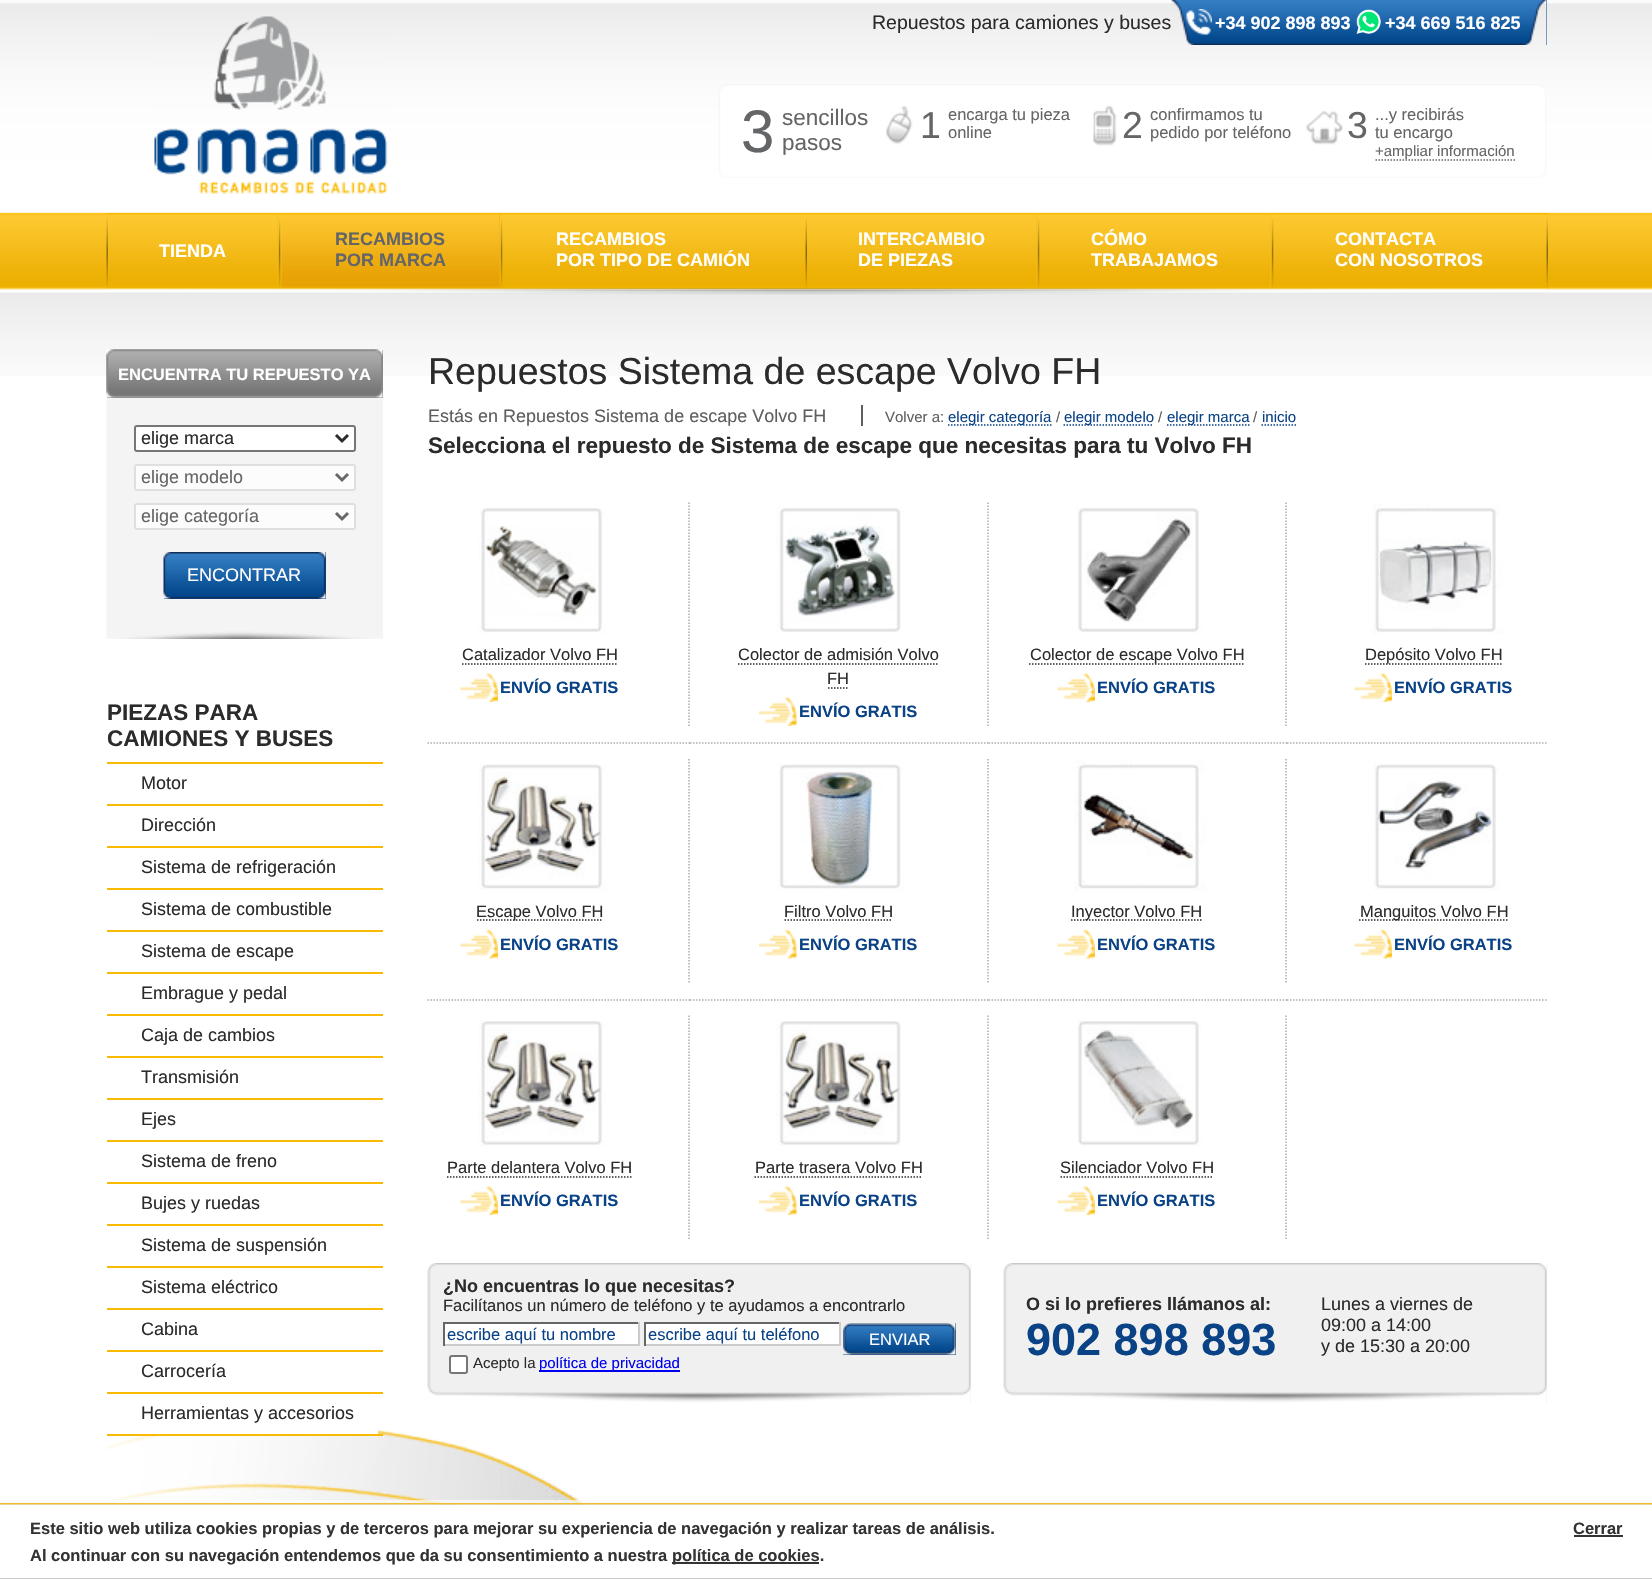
void draw(SkCanvas* canvas) {
	SkPaint paint;
	paint.setAntiAlias(true);
	auto svgPath = [&](const char* data, bool evenOdd = false) {
		SkPath result = *SkParsePath::FromSVGString(data);
		if (evenOdd) result.setFillType(SkPathFillType::kEvenOdd);
		return result;
	};
	canvas->clear(0xffffffff);
	paint.setColor(0xfffbfbfb);
	canvas->drawRect(SkRect::MakeXYWH(0, 0, 1652, 3), paint);
	canvas->drawImageRect(SkImages::DeferredFromEncodedData(SkData::MakeFromFileName("img1.png")), SkRect::MakeXYWH(0, 3, 1652, 210), SkSamplingOptions());
	canvas->drawImageRect(SkImages::DeferredFromEncodedData(SkData::MakeFromFileName("img2.png")), SkRect::MakeXYWH(154, 16, 234, 178), SkSamplingOptions());
	SkFont f1(fontMgr->matchFamilyStyle("Liberation Sans", SkFontStyle::Normal()), 19.5);
	f1.setSubpixel(true);
	paint.setColor(0xff2b2b2b);
	canvas->drawString("Repuestos para camiones y buses", 872, 29, f1, paint);
	paint.setColor(0xff004489);
	canvas->drawRect(SkRect::MakeXYWH(1546, 0, 1, 45), paint);
	canvas->drawImageRect(SkImages::DeferredFromEncodedData(SkData::MakeFromFileName("img3.png")), SkRect::MakeXYWH(1171, 0, 376, 45), SkSamplingOptions());
	canvas->drawImageRect(SkImages::DeferredFromEncodedData(SkData::MakeFromFileName("img4.png")), SkRect::MakeXYWH(1186, 9, 26, 26), SkSamplingOptions());
	SkFont f2(fontMgr->matchFamilyStyle("Liberation Sans", SkFontStyle::Bold()), 18);
	f2.setSubpixel(true);
	paint.setColor(0xffffffff);
	canvas->drawString("+34 902 898 893", 1215, 29, f2, paint);
	canvas->drawImageRect(SkImages::DeferredFromEncodedData(SkData::MakeFromFileName("img5.png")), SkRect::MakeXYWH(1356, 9, 25, 25), SkSamplingOptions());
	canvas->drawString("+34 669 516 825", 1385, 29, f2, paint);
	canvas->drawRect(SkRect::MakeXYWH(719, 84, 828, 24), paint);
	canvas->drawImageRect(SkImages::DeferredFromEncodedData(SkData::MakeFromFileName("img6.png")), SkRect::MakeXYWH(718, 84, 829, 94), SkSamplingOptions());
	SkFont f3(fontMgr->matchFamilyStyle("Liberation Sans", SkFontStyle::Normal()), 60);
	f3.setSubpixel(true);
	paint.setColor(0xff646567);
	canvas->drawString("3", 741, 152, f3, paint);
	SkFont f4(fontMgr->matchFamilyStyle("Liberation Sans", SkFontStyle::Normal()), 22.5);
	f4.setSubpixel(true);
	canvas->drawString("sencillos", 782, 125, f4, paint);
	canvas->drawString("pasos", 782, 150, f4, paint);
	canvas->drawImageRect(SkImages::DeferredFromEncodedData(SkData::MakeFromFileName("img7.png")), SkRect::MakeXYWH(886, 106, 27, 39), SkSamplingOptions());
	SkFont f5(fontMgr->matchFamilyStyle("Liberation Sans", SkFontStyle::Normal()), 37.5);
	f5.setSubpixel(true);
	canvas->drawString("1", 920, 138, f5, paint);
	SkFont f6(fontMgr->matchFamilyStyle("Liberation Sans", SkFontStyle::Normal()), 16.5);
	f6.setSubpixel(true);
	canvas->drawString("encarga tu pieza", 948, 120, f6, paint);
	canvas->drawString("online", 948, 138, f6, paint);
	canvas->drawImageRect(SkImages::DeferredFromEncodedData(SkData::MakeFromFileName("img8.png")), SkRect::MakeXYWH(1093, 106, 24, 40), SkSamplingOptions());
	canvas->drawString("2", 1122, 138, f5, paint);
	canvas->drawString("confirmamos tu", 1150, 120, f6, paint);
	canvas->drawString("pedido por teléfono", 1150, 138, f6, paint);
	canvas->drawImageRect(SkImages::DeferredFromEncodedData(SkData::MakeFromFileName("img9.png")), SkRect::MakeXYWH(1306, 110, 37, 35), SkSamplingOptions());
	canvas->drawString("3", 1347, 138, f5, paint);
	canvas->drawString("...y recibirás", 1375, 120, f6, paint);
	canvas->drawString("tu encargo", 1375, 138, f6, paint);
	paint.setStroke(true);
	paint.setStrokeWidth(1.5);
	paint.setColor(0xff646464);
	paint.setPathEffect(SkDashPathEffect::Make({{1.5f, 1.5f}}, 0));
	canvas->drawPath(svgPath("M1375.5 160H1515"), paint);
	paint.setPathEffect(nullptr);
	SkFont f7(fontMgr->matchFamilyStyle("Liberation Sans", SkFontStyle::Normal()), 15);
	f7.setSubpixel(true);
	paint.setStroke(false);
	paint.setColor(0xff646567);
	canvas->drawString("+ampliar información", 1375, 156, f7, paint);
	canvas->drawImageRect(SkImages::DeferredFromEncodedData(SkData::MakeFromFileName("img10.png")), SkRect::MakeXYWH(0, 213, 1652, 77), SkSamplingOptions());
	canvas->drawImageRect(SkImages::DeferredFromEncodedData(SkData::MakeFromFileName("img11.png")), SkRect::MakeXYWH(106, 213, 1442, 77), SkSamplingOptions());
	canvas->drawImageRect(SkImages::DeferredFromEncodedData(SkData::MakeFromFileName("img12.png")), SkRect::MakeXYWH(108, 218, 173, 70), SkSamplingOptions());
	paint.setColor(0xfff4bc19);
	canvas->drawRect(SkRect::MakeXYWH(277, 213, 1, 75), paint);
	canvas->drawImageRect(SkImages::DeferredFromEncodedData(SkData::MakeFromFileName("img13.png")), SkRect::MakeXYWH(110, 213, 168, 75), SkSamplingOptions());
	paint.setColor(0xffffffff);
	canvas->drawString("TIENDA", 159, 257, f2, paint);
	canvas->drawImageRect(SkImages::DeferredFromEncodedData(SkData::MakeFromFileName("img14.png")), SkRect::MakeXYWH(280, 218, 223, 70), SkSamplingOptions());
	paint.setColor(0xfff0b016);
	canvas->drawRect(SkRect::MakeXYWH(499, 213, 1, 75), paint);
	canvas->drawImageRect(SkImages::DeferredFromEncodedData(SkData::MakeFromFileName("img15.png")), SkRect::MakeXYWH(282, 213, 218, 75), SkSamplingOptions());
	paint.setColor(0xff646567);
	canvas->drawString("RECAMBIOS", 335, 245, f2, paint);
	canvas->drawString("POR MARCA", 335, 266, f2, paint);
	canvas->drawImageRect(SkImages::DeferredFromEncodedData(SkData::MakeFromFileName("img16.png")), SkRect::MakeXYWH(502, 218, 305, 70), SkSamplingOptions());
	canvas->drawImageRect(SkImages::DeferredFromEncodedData(SkData::MakeFromFileName("img17.png")), SkRect::MakeXYWH(504, 213, 300, 75), SkSamplingOptions());
	paint.setColor(0xffffffff);
	canvas->drawString("RECAMBIOS", 556, 245, f2, paint);
	canvas->drawString("POR TIPO DE CAMIÓN", 556, 266, f2, paint);
	canvas->drawImageRect(SkImages::DeferredFromEncodedData(SkData::MakeFromFileName("img18.png")), SkRect::MakeXYWH(807, 218, 233, 70), SkSamplingOptions());
	paint.setColor(0xfff4bc19);
	canvas->drawRect(SkRect::MakeXYWH(1036, 213, 1, 75), paint);
	canvas->drawImageRect(SkImages::DeferredFromEncodedData(SkData::MakeFromFileName("img19.png")), SkRect::MakeXYWH(809, 213, 228, 75), SkSamplingOptions());
	paint.setColor(0xffffffff);
	canvas->drawString("INTERCAMBIO", 858, 245, f2, paint);
	canvas->drawString("DE PIEZAS", 858, 266, f2, paint);
	canvas->drawImageRect(SkImages::DeferredFromEncodedData(SkData::MakeFromFileName("img20.png")), SkRect::MakeXYWH(1039, 218, 235, 70), SkSamplingOptions());
	paint.setColor(0xfff4bc19);
	canvas->drawRect(SkRect::MakeXYWH(1270, 213, 1, 75), paint);
	canvas->drawImageRect(SkImages::DeferredFromEncodedData(SkData::MakeFromFileName("img21.png")), SkRect::MakeXYWH(1041, 213, 230, 75), SkSamplingOptions());
	paint.setColor(0xffffffff);
	canvas->drawString("CÓMO", 1091, 245, f2, paint);
	canvas->drawString("TRABAJAMOS", 1091, 266, f2, paint);
	canvas->drawImageRect(SkImages::DeferredFromEncodedData(SkData::MakeFromFileName("img22.png")), SkRect::MakeXYWH(1273, 222, 275, 66), SkSamplingOptions());
	canvas->drawImageRect(SkImages::DeferredFromEncodedData(SkData::MakeFromFileName("img23.png")), SkRect::MakeXYWH(1275, 213, 270, 75), SkSamplingOptions());
	canvas->drawString("CONTACTA", 1335, 245, f2, paint);
	canvas->drawString("CON NOSOTROS", 1335, 266, f2, paint);
	canvas->drawImageRect(SkImages::DeferredFromEncodedData(SkData::MakeFromFileName("img24.png")), SkRect::MakeXYWH(0, 289, 1652, 87), SkSamplingOptions());
	canvas->drawImageRect(SkImages::DeferredFromEncodedData(SkData::MakeFromFileName("img25.png")), SkRect::MakeXYWH(106, 289, 1441, 6), SkSamplingOptions());
	paint.setColor(0xfff4f4f4);
	canvas->drawRect(SkRect::MakeXYWH(382, 398, 1, 241), paint);
	canvas->drawImageRect(SkImages::DeferredFromEncodedData(SkData::MakeFromFileName("img26.png")), SkRect::MakeXYWH(106, 349, 277, 290), SkSamplingOptions());
	paint.setColor(0xff888888);
	canvas->drawRect(SkRect::MakeXYWH(107, 350, 276, 48), paint);
	canvas->drawImageRect(SkImages::DeferredFromEncodedData(SkData::MakeFromFileName("img27.png")), SkRect::MakeXYWH(106, 349, 277, 49), SkSamplingOptions());
	SkFont f8(fontMgr->matchFamilyStyle("Liberation Sans", SkFontStyle::Bold()), 16.5);
	f8.setSubpixel(true);
	paint.setColor(0xffffffff);
	canvas->drawString("ENCUENTRA TU REPUESTO YA", 118, 380, f8, paint);
	canvas->drawRoundRect(SkRect::MakeXYWH(135, 426, 220, 25), 2, 2, paint);
	paint.setStroke(true);
	paint.setStrokeWidth(2);
	paint.setColor(0xff767676);
	canvas->drawRoundRect(SkRect::MakeXYWH(135, 426, 220, 25), 2, 2, paint);
	paint.setStrokeWidth(3);
	paint.setColor(0xff2b2b2b);
	canvas->drawPath(svgPath("M336 435L342 441L348 435"), paint);
	SkFont f9(fontMgr->matchFamilyStyle("Liberation Sans", SkFontStyle::Normal()), 18);
	f9.setSubpixel(true);
	paint.setStroke(false);
	canvas->drawString("elige marca", 141, 444, f9, paint);
	paint.setColor(0xfffcfcfc);
	canvas->drawRoundRect(SkRect::MakeXYWH(134, 464, 222, 27), 3, 3, paint);
	paint.setStroke(true);
	paint.setStrokeWidth(2);
	paint.setColor(0x4d9c9c9c);
	canvas->drawRoundRect(SkRect::MakeXYWH(135, 465, 220, 25), 2, 2, paint);
	paint.setStrokeWidth(3);
	paint.setColor(0xff676767);
	canvas->drawPath(svgPath("M336 474L342 480L348 474"), paint);
	paint.setStroke(false);
	paint.setColor(0xff646567);
	canvas->drawString("elige modelo", 141, 483, f9, paint);
	paint.setColor(0xfffcfcfc);
	canvas->drawRoundRect(SkRect::MakeXYWH(134, 503, 222, 27), 3, 3, paint);
	paint.setStroke(true);
	paint.setStrokeWidth(2);
	paint.setColor(0x4d9c9c9c);
	canvas->drawRoundRect(SkRect::MakeXYWH(135, 504, 220, 25), 2, 2, paint);
	paint.setStrokeWidth(3);
	paint.setColor(0xff676767);
	canvas->drawPath(svgPath("M336 513L342 519L348 513"), paint);
	paint.setStroke(false);
	paint.setColor(0xff646567);
	canvas->drawString("elige categoría", 141, 522, f9, paint);
	paint.setColor(0xff0f498f);
	canvas->drawRect(SkRect::MakeXYWH(164, 552, 162, 47), paint);
	canvas->drawImageRect(SkImages::DeferredFromEncodedData(SkData::MakeFromFileName("img28.png")), SkRect::MakeXYWH(163, 552, 163, 47), SkSamplingOptions());
	paint.setColor(0xffffffff);
	canvas->drawString("ENCONTRAR", 187, 581, f9, paint);
	SkFont f10(fontMgr->matchFamilyStyle("Liberation Sans", SkFontStyle::Bold()), 22.5);
	f10.setSubpixel(true);
	paint.setColor(0xff2b2b2b);
	canvas->drawString("PIEZAS PARA", 107, 720, f10, paint);
	canvas->drawString("CAMIONES Y BUSES", 107, 746, f10, paint);
	paint.setColor(0xfff8bb02);
	canvas->drawRect(SkRect::MakeXYWH(107, 762, 276, 2), paint);
	canvas->drawRect(SkRect::MakeXYWH(107, 804, 276, 2), paint);
	paint.setColor(0xff2b2b2b);
	canvas->drawString("Motor", 141, 789, f9, paint);
	paint.setColor(0xfff8bb02);
	canvas->drawRect(SkRect::MakeXYWH(107, 846, 276, 2), paint);
	paint.setColor(0xff2b2b2b);
	canvas->drawString("Dirección", 141, 831, f9, paint);
	paint.setColor(0xfff8bb02);
	canvas->drawRect(SkRect::MakeXYWH(107, 888, 276, 2), paint);
	paint.setColor(0xff2b2b2b);
	canvas->drawString("Sistema de refrigeración", 141, 873, f9, paint);
	paint.setColor(0xfff8bb02);
	canvas->drawRect(SkRect::MakeXYWH(107, 930, 276, 2), paint);
	paint.setColor(0xff2b2b2b);
	canvas->drawString("Sistema de combustible", 141, 915, f9, paint);
	paint.setColor(0xfff8bb02);
	canvas->drawRect(SkRect::MakeXYWH(107, 972, 276, 2), paint);
	paint.setColor(0xff2b2b2b);
	canvas->drawString("Sistema de escape", 141, 957, f9, paint);
	paint.setColor(0xfff8bb02);
	canvas->drawRect(SkRect::MakeXYWH(107, 1014, 276, 2), paint);
	paint.setColor(0xff2b2b2b);
	canvas->drawString("Embrague y pedal", 141, 999, f9, paint);
	paint.setColor(0xfff8bb02);
	canvas->drawRect(SkRect::MakeXYWH(107, 1056, 276, 2), paint);
	paint.setColor(0xff2b2b2b);
	canvas->drawString("Caja de cambios", 141, 1041, f9, paint);
	paint.setColor(0xfff8bb02);
	canvas->drawRect(SkRect::MakeXYWH(107, 1098, 276, 2), paint);
	paint.setColor(0xff2b2b2b);
	canvas->drawString("Transmisión", 141, 1083, f9, paint);
	paint.setColor(0xfff8bb02);
	canvas->drawRect(SkRect::MakeXYWH(107, 1140, 276, 2), paint);
	paint.setColor(0xff2b2b2b);
	canvas->drawString("Ejes", 141, 1125, f9, paint);
	paint.setColor(0xfff8bb02);
	canvas->drawRect(SkRect::MakeXYWH(107, 1182, 276, 2), paint);
	paint.setColor(0xff2b2b2b);
	canvas->drawString("Sistema de freno", 141, 1167, f9, paint);
	paint.setColor(0xfff8bb02);
	canvas->drawRect(SkRect::MakeXYWH(107, 1224, 276, 2), paint);
	paint.setColor(0xff2b2b2b);
	canvas->drawString("Bujes y ruedas", 141, 1209, f9, paint);
	paint.setColor(0xfff8bb02);
	canvas->drawRect(SkRect::MakeXYWH(107, 1266, 276, 2), paint);
	paint.setColor(0xff2b2b2b);
	canvas->drawString("Sistema de suspensión", 141, 1251, f9, paint);
	paint.setColor(0xfff8bb02);
	canvas->drawRect(SkRect::MakeXYWH(107, 1308, 276, 2), paint);
	paint.setColor(0xff2b2b2b);
	canvas->drawString("Sistema eléctrico", 141, 1293, f9, paint);
	paint.setColor(0xfff8bb02);
	canvas->drawRect(SkRect::MakeXYWH(107, 1350, 276, 2), paint);
	paint.setColor(0xff2b2b2b);
	canvas->drawString("Cabina", 141, 1335, f9, paint);
	paint.setColor(0xfff8bb02);
	canvas->drawRect(SkRect::MakeXYWH(107, 1392, 276, 2), paint);
	paint.setColor(0xff2b2b2b);
	canvas->drawString("Carrocería", 141, 1377, f9, paint);
	canvas->drawImageRect(SkImages::DeferredFromEncodedData(SkData::MakeFromFileName("img51.png")), SkRect::MakeXYWH(106, 1421, 476, 82), SkSamplingOptions());
	paint.setColor(0xfff8bb02);
	canvas->drawRect(SkRect::MakeXYWH(107, 1434, 276, 2), paint);
	paint.setColor(0xffffffff);
	canvas->drawRect(SkRect::MakeXYWH(150, 1421, 228, 13), paint);
	paint.setColor(0xff2b2b2b);
	canvas->drawString("Herramientas y accesorios", 141, 1419, f9, paint);
	canvas->drawString("Repuestos Sistema de escape Volvo FH", 428, 384, f5, paint);
	paint.setColor(0xff5e5e5e);
	canvas->drawString("Estás en Repuestos Sistema de escape Volvo FH", 428, 422, f9, paint);
	canvas->drawRect(SkRect::MakeXYWH(861, 405, 2, 21), paint);
	canvas->drawString("Volver a:", 885, 422, f7, paint);
	paint.setStroke(true);
	paint.setStrokeWidth(1.5);
	paint.setColor(0xff0a4286);
	paint.setPathEffect(SkDashPathEffect::Make({{1.5f, 1.5f}}, 0));
	canvas->drawPath(svgPath("M948 425H1051.5"), paint);
	paint.setPathEffect(nullptr);
	paint.setStroke(false);
	canvas->drawString("elegir categoría", 948, 422, f7, paint);
	paint.setColor(0xff5e5e5e);
	canvas->drawString("/", 1056, 422, f7, paint);
	paint.setStroke(true);
	paint.setColor(0xff0a4286);
	paint.setPathEffect(SkDashPathEffect::Make({{1.5f, 1.5f}}, 0));
	canvas->drawPath(svgPath("M1063.5 425H1153.5"), paint);
	paint.setPathEffect(nullptr);
	paint.setStroke(false);
	canvas->drawString("elegir modelo", 1064, 422, f7, paint);
	paint.setColor(0xff5e5e5e);
	canvas->drawString("/", 1158, 422, f7, paint);
	paint.setStroke(true);
	paint.setColor(0xff0a4286);
	paint.setPathEffect(SkDashPathEffect::Make({{1.5f, 1.5f}}, 0));
	canvas->drawPath(svgPath("M1167 425H1249.5"), paint);
	paint.setPathEffect(nullptr);
	paint.setStroke(false);
	canvas->drawString("elegir marca", 1167, 422, f7, paint);
	paint.setColor(0xff5e5e5e);
	canvas->drawString("/", 1253, 422, f7, paint);
	paint.setColor(0xff0a4286);
	canvas->drawString("inicio", 1262, 422, f7, paint);
	paint.setStroke(true);
	paint.setPathEffect(SkDashPathEffect::Make({{1.5f, 1.5f}}, 0));
	canvas->drawPath(svgPath("M1261.5 425H1296"), paint);
	paint.setPathEffect(nullptr);
	paint.setStroke(false);
	paint.setColor(0xff2b2b2b);
	canvas->drawString("Selecciona el repuesto de Sistema de escape que necesitas para tu Volvo FH", 428, 453, f10, paint);
	paint.setStroke(true);
	paint.setColor(0xffadadad);
	paint.setPathEffect(SkDashPathEffect::Make({{1.5f, 1.5f}}, 0));
	canvas->drawPath(svgPath("M427.5 743H690"), paint);
	paint.setPathEffect(nullptr);
	paint.setPathEffect(SkDashPathEffect::Make({{1.5f, 1.5f}}, 0));
	canvas->drawPath(svgPath("M689 502.5V727.5"), paint);
	paint.setPathEffect(nullptr);
	canvas->drawImageRect(SkImages::DeferredFromEncodedData(SkData::MakeFromFileName("img29.png")), SkRect::MakeXYWH(477, 507, 129, 127), SkSamplingOptions());
	paint.setStroke(false);
	paint.setColor(0xff2b2b2b);
	canvas->drawString("Catalizador Volvo FH", 462, 660, f6, paint);
	paint.setStroke(true);
	paint.setPathEffect(SkDashPathEffect::Make({{1.5f, 1.5f}}, 0));
	canvas->drawPath(svgPath("M462 664H618"), paint);
	paint.setPathEffect(nullptr);
	canvas->drawImageRect(SkImages::DeferredFromEncodedData(SkData::MakeFromFileName("img30.png")), SkRect::MakeXYWH(460, 673, 38, 29), SkSamplingOptions());
	paint.setStroke(false);
	paint.setColor(0xff0a4286);
	canvas->drawString("ENVÍO GRATIS", 500, 693, f8, paint);
	paint.setStroke(true);
	paint.setColor(0xffadadad);
	paint.setPathEffect(SkDashPathEffect::Make({{1.5f, 1.5f}}, 0));
	canvas->drawPath(svgPath("M690 743H988.5"), paint);
	paint.setPathEffect(nullptr);
	paint.setPathEffect(SkDashPathEffect::Make({{1.5f, 1.5f}}, 0));
	canvas->drawPath(svgPath("M988 502.5V727.5"), paint);
	paint.setPathEffect(nullptr);
	canvas->drawImageRect(SkImages::DeferredFromEncodedData(SkData::MakeFromFileName("img31.png")), SkRect::MakeXYWH(776, 507, 125, 125), SkSamplingOptions());
	paint.setStroke(false);
	paint.setColor(0xff2b2b2b);
	canvas->drawString("Colector de admisión Volvo", 738, 660, f6, paint);
	paint.setStroke(true);
	paint.setPathEffect(SkDashPathEffect::Make({{1.5f, 1.5f}}, 0));
	canvas->drawPath(svgPath("M738 664H939"), paint);
	paint.setPathEffect(nullptr);
	paint.setStroke(false);
	canvas->drawString("FH", 827, 684, f6, paint);
	paint.setStroke(true);
	paint.setPathEffect(SkDashPathEffect::Make({{1.5f, 1.5f}}, 0));
	canvas->drawPath(svgPath("M828 688H849"), paint);
	paint.setPathEffect(nullptr);
	canvas->drawImageRect(SkImages::DeferredFromEncodedData(SkData::MakeFromFileName("img32.png")), SkRect::MakeXYWH(759, 697, 38, 29), SkSamplingOptions());
	paint.setStroke(false);
	paint.setColor(0xff0a4286);
	canvas->drawString("ENVÍO GRATIS", 799, 717, f8, paint);
	paint.setStroke(true);
	paint.setColor(0xffadadad);
	paint.setPathEffect(SkDashPathEffect::Make({{1.5f, 1.5f}}, 0));
	canvas->drawPath(svgPath("M988.5 743H1287"), paint);
	paint.setPathEffect(nullptr);
	paint.setPathEffect(SkDashPathEffect::Make({{1.5f, 1.5f}}, 0));
	canvas->drawPath(svgPath("M1286 502.5V727.5"), paint);
	paint.setPathEffect(nullptr);
	canvas->drawImageRect(SkImages::DeferredFromEncodedData(SkData::MakeFromFileName("img33.png")), SkRect::MakeXYWH(1077, 507, 126, 127), SkSamplingOptions());
	paint.setColor(0xff2b2b2b);
	paint.setPathEffect(SkDashPathEffect::Make({{1.5f, 1.5f}}, 0));
	canvas->drawPath(svgPath("M1029 664H1245"), paint);
	paint.setPathEffect(nullptr);
	paint.setStroke(false);
	canvas->drawString("Colector de escape Volvo FH", 1030, 660, f6, paint);
	canvas->drawImageRect(SkImages::DeferredFromEncodedData(SkData::MakeFromFileName("img34.png")), SkRect::MakeXYWH(1057, 673, 38, 29), SkSamplingOptions());
	paint.setColor(0xff0a4286);
	canvas->drawString("ENVÍO GRATIS", 1097, 693, f8, paint);
	paint.setStroke(true);
	paint.setColor(0xffadadad);
	paint.setPathEffect(SkDashPathEffect::Make({{1.5f, 1.5f}}, 0));
	canvas->drawPath(svgPath("M1287 743H1546.5"), paint);
	paint.setPathEffect(nullptr);
	canvas->drawImageRect(SkImages::DeferredFromEncodedData(SkData::MakeFromFileName("img35.png")), SkRect::MakeXYWH(1373, 503, 130, 131), SkSamplingOptions());
	paint.setColor(0xff2b2b2b);
	paint.setPathEffect(SkDashPathEffect::Make({{1.5f, 1.5f}}, 0));
	canvas->drawPath(svgPath("M1365 664H1503"), paint);
	paint.setPathEffect(nullptr);
	paint.setStroke(false);
	canvas->drawString("Depósito Volvo FH", 1365, 660, f6, paint);
	canvas->drawImageRect(SkImages::DeferredFromEncodedData(SkData::MakeFromFileName("img36.png")), SkRect::MakeXYWH(1354, 673, 38, 29), SkSamplingOptions());
	paint.setColor(0xff0a4286);
	canvas->drawString("ENVÍO GRATIS", 1394, 693, f8, paint);
	paint.setStroke(true);
	paint.setColor(0xffadadad);
	paint.setPathEffect(SkDashPathEffect::Make({{1.5f, 1.5f}}, 0));
	canvas->drawPath(svgPath("M427.5 1000H690"), paint);
	paint.setPathEffect(nullptr);
	paint.setPathEffect(SkDashPathEffect::Make({{1.5f, 1.5f}}, 0));
	canvas->drawPath(svgPath("M689 759V984"), paint);
	paint.setPathEffect(nullptr);
	canvas->drawImageRect(SkImages::DeferredFromEncodedData(SkData::MakeFromFileName("img37.png")), SkRect::MakeXYWH(477, 763, 129, 128), SkSamplingOptions());
	paint.setColor(0xff2b2b2b);
	paint.setPathEffect(SkDashPathEffect::Make({{1.5f, 1.5f}}, 0));
	canvas->drawPath(svgPath("M477 920H603"), paint);
	paint.setPathEffect(nullptr);
	paint.setStroke(false);
	canvas->drawString("Escape Volvo FH", 476, 917, f6, paint);
	canvas->drawImageRect(SkImages::DeferredFromEncodedData(SkData::MakeFromFileName("img38.png")), SkRect::MakeXYWH(460, 930, 38, 29), SkSamplingOptions());
	paint.setColor(0xff0a4286);
	canvas->drawString("ENVÍO GRATIS", 500, 950, f8, paint);
	paint.setStroke(true);
	paint.setColor(0xffadadad);
	paint.setPathEffect(SkDashPathEffect::Make({{1.5f, 1.5f}}, 0));
	canvas->drawPath(svgPath("M690 1000H988.5"), paint);
	paint.setPathEffect(nullptr);
	paint.setPathEffect(SkDashPathEffect::Make({{1.5f, 1.5f}}, 0));
	canvas->drawPath(svgPath("M988 759V984"), paint);
	paint.setPathEffect(nullptr);
	canvas->drawImageRect(SkImages::DeferredFromEncodedData(SkData::MakeFromFileName("img39.png")), SkRect::MakeXYWH(779, 763, 125, 128), SkSamplingOptions());
	paint.setStroke(false);
	paint.setColor(0xff2b2b2b);
	canvas->drawString("Filtro Volvo FH", 784, 917, f6, paint);
	paint.setStroke(true);
	paint.setPathEffect(SkDashPathEffect::Make({{1.5f, 1.5f}}, 0));
	canvas->drawPath(svgPath("M784.5 920H892.5"), paint);
	paint.setPathEffect(nullptr);
	canvas->drawImageRect(SkImages::DeferredFromEncodedData(SkData::MakeFromFileName("img40.png")), SkRect::MakeXYWH(759, 930, 38, 29), SkSamplingOptions());
	paint.setStroke(false);
	paint.setColor(0xff0a4286);
	canvas->drawString("ENVÍO GRATIS", 799, 950, f8, paint);
	paint.setStroke(true);
	paint.setColor(0xffadadad);
	paint.setPathEffect(SkDashPathEffect::Make({{1.5f, 1.5f}}, 0));
	canvas->drawPath(svgPath("M988.5 1000H1287"), paint);
	paint.setPathEffect(nullptr);
	paint.setPathEffect(SkDashPathEffect::Make({{1.5f, 1.5f}}, 0));
	canvas->drawPath(svgPath("M1286 759V984"), paint);
	paint.setPathEffect(nullptr);
	canvas->drawImageRect(SkImages::DeferredFromEncodedData(SkData::MakeFromFileName("img41.png")), SkRect::MakeXYWH(1074, 759, 132, 132), SkSamplingOptions());
	paint.setColor(0xff2b2b2b);
	paint.setPathEffect(SkDashPathEffect::Make({{1.5f, 1.5f}}, 0));
	canvas->drawPath(svgPath("M1071 920H1203"), paint);
	paint.setPathEffect(nullptr);
	paint.setStroke(false);
	canvas->drawString("Inyector Volvo FH", 1071, 917, f6, paint);
	canvas->drawImageRect(SkImages::DeferredFromEncodedData(SkData::MakeFromFileName("img42.png")), SkRect::MakeXYWH(1057, 930, 38, 29), SkSamplingOptions());
	paint.setColor(0xff0a4286);
	canvas->drawString("ENVÍO GRATIS", 1097, 950, f8, paint);
	paint.setStroke(true);
	paint.setColor(0xffadadad);
	paint.setPathEffect(SkDashPathEffect::Make({{1.5f, 1.5f}}, 0));
	canvas->drawPath(svgPath("M1287 1000H1546.5"), paint);
	paint.setPathEffect(nullptr);
	canvas->drawImageRect(SkImages::DeferredFromEncodedData(SkData::MakeFromFileName("img43.png")), SkRect::MakeXYWH(1373, 763, 127, 128), SkSamplingOptions());
	paint.setColor(0xff2b2b2b);
	paint.setPathEffect(SkDashPathEffect::Make({{1.5f, 1.5f}}, 0));
	canvas->drawPath(svgPath("M1359 920H1509"), paint);
	paint.setPathEffect(nullptr);
	paint.setStroke(false);
	canvas->drawString("Manguitos Volvo FH", 1360, 917, f6, paint);
	canvas->drawImageRect(SkImages::DeferredFromEncodedData(SkData::MakeFromFileName("img44.png")), SkRect::MakeXYWH(1354, 930, 38, 29), SkSamplingOptions());
	paint.setColor(0xff0a4286);
	canvas->drawString("ENVÍO GRATIS", 1394, 950, f8, paint);
	paint.setStroke(true);
	paint.setColor(0xffadadad);
	paint.setPathEffect(SkDashPathEffect::Make({{1.5f, 1.5f}}, 0));
	canvas->drawPath(svgPath("M689 1015.5V1240.5"), paint);
	paint.setPathEffect(nullptr);
	canvas->drawImageRect(SkImages::DeferredFromEncodedData(SkData::MakeFromFileName("img45.png")), SkRect::MakeXYWH(477, 1020, 129, 127), SkSamplingOptions());
	paint.setStroke(false);
	paint.setColor(0xff2b2b2b);
	canvas->drawString("Parte delantera Volvo FH", 447, 1173, f6, paint);
	paint.setStroke(true);
	paint.setPathEffect(SkDashPathEffect::Make({{1.5f, 1.5f}}, 0));
	canvas->drawPath(svgPath("M447 1177H633"), paint);
	paint.setPathEffect(nullptr);
	canvas->drawImageRect(SkImages::DeferredFromEncodedData(SkData::MakeFromFileName("img30.png")), SkRect::MakeXYWH(460, 1186, 38, 29), SkSamplingOptions());
	paint.setStroke(false);
	paint.setColor(0xff0a4286);
	canvas->drawString("ENVÍO GRATIS", 500, 1206, f8, paint);
	paint.setStroke(true);
	paint.setColor(0xffadadad);
	paint.setPathEffect(SkDashPathEffect::Make({{1.5f, 1.5f}}, 0));
	canvas->drawPath(svgPath("M988 1015.5V1240.5"), paint);
	paint.setPathEffect(nullptr);
	canvas->drawImageRect(SkImages::DeferredFromEncodedData(SkData::MakeFromFileName("img46.png")), SkRect::MakeXYWH(776, 1020, 125, 125), SkSamplingOptions());
	paint.setStroke(false);
	paint.setColor(0xff2b2b2b);
	canvas->drawString("Parte trasera Volvo FH", 755, 1173, f6, paint);
	paint.setStroke(true);
	paint.setPathEffect(SkDashPathEffect::Make({{1.5f, 1.5f}}, 0));
	canvas->drawPath(svgPath("M754.5 1177H922.5"), paint);
	paint.setPathEffect(nullptr);
	canvas->drawImageRect(SkImages::DeferredFromEncodedData(SkData::MakeFromFileName("img32.png")), SkRect::MakeXYWH(759, 1186, 38, 29), SkSamplingOptions());
	paint.setStroke(false);
	paint.setColor(0xff0a4286);
	canvas->drawString("ENVÍO GRATIS", 799, 1206, f8, paint);
	paint.setStroke(true);
	paint.setColor(0xffadadad);
	paint.setPathEffect(SkDashPathEffect::Make({{1.5f, 1.5f}}, 0));
	canvas->drawPath(svgPath("M1286 1015.5V1240.5"), paint);
	paint.setPathEffect(nullptr);
	canvas->drawImageRect(SkImages::DeferredFromEncodedData(SkData::MakeFromFileName("img47.png")), SkRect::MakeXYWH(1077, 1020, 126, 127), SkSamplingOptions());
	paint.setStroke(false);
	paint.setColor(0xff2b2b2b);
	canvas->drawString("Silenciador Volvo FH", 1060, 1173, f6, paint);
	paint.setStroke(true);
	paint.setPathEffect(SkDashPathEffect::Make({{1.5f, 1.5f}}, 0));
	canvas->drawPath(svgPath("M1060.5 1177H1213.5"), paint);
	paint.setPathEffect(nullptr);
	canvas->drawImageRect(SkImages::DeferredFromEncodedData(SkData::MakeFromFileName("img34.png")), SkRect::MakeXYWH(1057, 1186, 38, 29), SkSamplingOptions());
	paint.setStroke(false);
	paint.setColor(0xff0a4286);
	canvas->drawString("ENVÍO GRATIS", 1097, 1206, f8, paint);
	paint.setColor(0xffeeeeee);
	canvas->drawRect(SkRect::MakeXYWH(970, 1263, 1, 141), paint);
	canvas->drawImageRect(SkImages::DeferredFromEncodedData(SkData::MakeFromFileName("img48.png")), SkRect::MakeXYWH(427, 1263, 544, 141), SkSamplingOptions());
	paint.setColor(0xff2b2b2b);
	canvas->drawString("¿No encuentras lo que necesitas?", 443, 1292, f2, paint);
	canvas->drawString("Facilítanos un número de teléfono y te ayudamos a encontrarlo", 443, 1311, f6, paint);
	paint.setColor(0xffffffff);
	canvas->drawRect(SkRect::MakeXYWH(445, 1324, 193, 20), paint);
	paint.setColor(0xff666666);
	canvas->drawRect(SkRect::MakeXYWH(443, 1322, 196, 2), paint);
	paint.setColor(0xffcccccc);
	canvas->drawRect(SkRect::MakeXYWH(638, 1322, 2, 24), paint);
	canvas->drawRect(SkRect::MakeXYWH(443, 1344, 196, 2), paint);
	paint.setColor(0xff666666);
	canvas->drawRect(SkRect::MakeXYWH(443, 1322, 2, 24), paint);
	paint.setColor(0xff0a4286);
	canvas->drawString("escribe aquí tu nombre", 447, 1340, f6, paint);
	paint.setColor(0xffffffff);
	canvas->drawRect(SkRect::MakeXYWH(646, 1324, 193, 20), paint);
	paint.setColor(0xff666666);
	canvas->drawRect(SkRect::MakeXYWH(644, 1322, 196, 2), paint);
	paint.setColor(0xffcccccc);
	canvas->drawRect(SkRect::MakeXYWH(839, 1322, 2, 24), paint);
	canvas->drawRect(SkRect::MakeXYWH(644, 1344, 196, 2), paint);
	paint.setColor(0xff666666);
	canvas->drawRect(SkRect::MakeXYWH(644, 1322, 2, 24), paint);
	paint.setColor(0xff0a4286);
	canvas->drawString("escribe aquí tu teléfono", 648, 1340, f6, paint);
	canvas->drawRect(SkRect::MakeXYWH(843, 1323, 113, 32), paint);
	canvas->drawImageRect(SkImages::DeferredFromEncodedData(SkData::MakeFromFileName("img49.png")), SkRect::MakeXYWH(843, 1323, 113, 32), SkSamplingOptions());
	paint.setColor(0xffffffff);
	canvas->drawString("ENVIAR", 869, 1345, f6, paint);
	canvas->drawRoundRect(SkRect::MakeXYWH(450, 1356, 17, 17), 2, 2, paint);
	paint.setStroke(true);
	paint.setStrokeWidth(2);
	paint.setColor(0xff767676);
	canvas->drawRoundRect(SkRect::MakeXYWH(450, 1356, 17, 17), 2, 2, paint);
	paint.setStroke(false);
	paint.setColor(0xff2b2b2b);
	canvas->drawString("Acepto la", 473, 1368, f7, paint);
	paint.setColor(0xff0000ee);
	canvas->drawRect(SkRect::MakeXYWH(539, 1370, 141, 2), paint);
	canvas->drawString("política de privacidad", 539, 1368, f7, paint);
	paint.setColor(0xffeeeeee);
	canvas->drawRect(SkRect::MakeXYWH(1546, 1263, 1, 141), paint);
	canvas->drawImageRect(SkImages::DeferredFromEncodedData(SkData::MakeFromFileName("img50.png")), SkRect::MakeXYWH(1003, 1263, 544, 141), SkSamplingOptions());
	paint.setColor(0xff2b2b2b);
	canvas->drawString("O si lo prefieres llámanos al:", 1026, 1310, f2, paint);
	SkFont f11(fontMgr->matchFamilyStyle("Liberation Sans", SkFontStyle::Bold()), 45);
	f11.setSubpixel(true);
	paint.setColor(0xff0a4286);
	canvas->drawString("902 898 893", 1026, 1355, f11, paint);
	paint.setColor(0xff2b2b2b);
	canvas->drawString("Lunes a viernes de", 1321, 1310, f9, paint);
	canvas->drawString("09:00 a 14:00", 1321, 1331, f9, paint);
	canvas->drawString("y de 15:30 a 20:00", 1321, 1352, f9, paint);
	canvas->drawImageRect(SkImages::DeferredFromEncodedData(SkData::MakeFromFileName("img52.png")), SkRect::MakeXYWH(0, 1503, 1652, 2), SkSamplingOptions());
	canvas->drawImageRect(SkImages::DeferredFromEncodedData(SkData::MakeFromFileName("img53.png")), SkRect::MakeXYWH(106, 1504, 1440, 1), SkSamplingOptions());
	paint.setColor(0xffcccccc);
	paint.setMaskFilter(SkMaskFilter::MakeBlur(kNormal_SkBlurStyle, 2));
	canvas->drawRect(SkRect::MakeXYWH(0, 1505, 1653, 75), paint);
	paint.setMaskFilter(nullptr);
	paint.setColor(0xffffffff);
	canvas->drawRect(SkRect::MakeXYWH(0, 1505, 1652, 73), paint);
	paint.setColor(0xffcccccc);
	canvas->drawRect(SkRect::MakeXYWH(0, 1578, 1652, 1), paint);
	paint.setColor(0xff333333);
	canvas->drawString("Este sitio web utiliza cookies propias y de terceros para mejorar su experiencia de navegación y realizar tareas de análisis.", 30, 1534, f8, paint);
	canvas->drawString("Al continuar con su navegación entendemos que da su consentimiento a nuestra", 30, 1561, f8, paint);
	canvas->drawRect(SkRect::MakeXYWH(672, 1562, 147, 2), paint);
	canvas->drawString("política de cookies.", 672, 1561, f8, paint);
	canvas->drawString("Cerrar", 1573, 1534, f8, paint);
	canvas->drawRect(SkRect::MakeXYWH(1574, 1535, 49, 2), paint);
}
